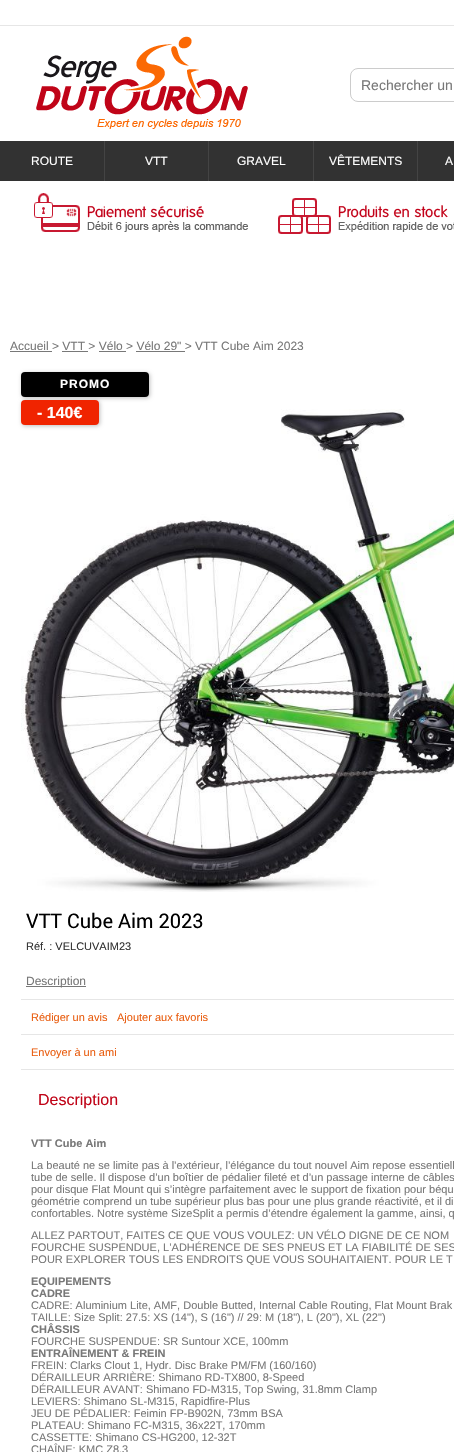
void draw(SkCanvas* canvas) {
	SkPaint paint;
	paint.setAntiAlias(true);
	auto spacedText = [&](const char* s, float x, float y, const SkFont& font, const SkPaint& ink, float letter, float word) {
		std::vector<SkGlyphID> glyphs(font.countText(s, strlen(s), SkTextEncoding::kUTF8));
		std::vector<float> xs(glyphs.size());
		font.textToGlyphs(s, strlen(s), SkTextEncoding::kUTF8, glyphs);
		font.getXPos(glyphs, xs, x);
		float extra = 0;
		for (size_t i = 0; i < glyphs.size(); i++) {
			xs[i] += extra;
			extra += letter + word * (glyphs[i] == font.unicharToGlyph(' '));
		}
		canvas->drawTextBlob(SkTextBlob::MakeFromPosHGlyphs(glyphs, xs, y, font), 0, 0, ink);
	};
	canvas->clear(0xffffffff);
	paint.setColor(0xffe6e6e6);
	canvas->drawRect(SkRect::MakeXYWH(0, 25, 454, 1), paint);
	canvas->drawImageRect(SkImages::DeferredFromEncodedData(SkData::MakeFromFileName("img1.png")), SkRect::MakeXYWH(36, 36, 212, 93), SkSamplingOptions());
	paint.setStroke(true);
	paint.setStrokeWidth(1);
	paint.setColor(0xffcccccc);
	canvas->drawRoundRect(SkRect::MakeXYWH(350.5, 68.5, 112, 33), 7.5, 7.5, paint);
	SkFont f1(fontMgr->matchFamilyStyle("Liberation Sans", SkFontStyle::Normal()), 14);
	f1.setSubpixel(true);
	paint.setStroke(false);
	paint.setColor(0xff787878);
	canvas->drawString("Rechercher un", 361, 90, f1, paint);
	paint.setColor(0xff323232);
	canvas->drawRect(SkRect::MakeXYWH(0, 141, 454, 40), paint);
	paint.setColor(0xff444444);
	canvas->drawRect(SkRect::MakeXYWH(104, 141, 1, 40), paint);
	SkFont f2(fontMgr->matchFamilyStyle("Liberation Sans", SkFontStyle::Normal()), 12);
	f2.setSubpixel(true);
	paint.setColor(0xffffffff);
	canvas->drawString("ROUTE", 31, 165, f2, paint);
	paint.setColor(0xff444444);
	canvas->drawRect(SkRect::MakeXYWH(208, 141, 1, 40), paint);
	paint.setColor(0xffffffff);
	canvas->drawString("VTT", 145, 165, f2, paint);
	paint.setColor(0xff444444);
	canvas->drawRect(SkRect::MakeXYWH(313, 141, 1, 40), paint);
	paint.setColor(0xffffffff);
	canvas->drawString("GRAVEL", 237, 165, f2, paint);
	paint.setColor(0xff444444);
	canvas->drawRect(SkRect::MakeXYWH(417, 141, 1, 40), paint);
	paint.setColor(0xffffffff);
	canvas->drawString("VÊTEMENTS", 329, 165, f2, paint);
	canvas->drawString("A", 445, 165, f2, paint);
	canvas->drawImageRect(SkImages::DeferredFromEncodedData(SkData::MakeFromFileName("img2.png")), SkRect::MakeXYWH(34, 193, 214, 39), SkSamplingOptions());
	canvas->drawImageRect(SkImages::DeferredFromEncodedData(SkData::MakeFromFileName("img3.png")), SkRect::MakeXYWH(278, 198, 176, 36), SkSamplingOptions());
	paint.setColor(0xff787878);
	canvas->drawString("Accueil > VTT > Vélo > Vélo 29\" > VTT Cube Aim 2023", 10, 350, f2, paint);
	canvas->drawRect(SkRect::MakeXYWH(10, 351, 42, 1), paint);
	canvas->drawRect(SkRect::MakeXYWH(62, 351, 26, 1), paint);
	canvas->drawRect(SkRect::MakeXYWH(99, 351, 27, 1), paint);
	canvas->drawRect(SkRect::MakeXYWH(136, 351, 49, 1), paint);
	paint.setColor(0x40000000);
	paint.setMaskFilter(SkMaskFilter::MakeBlur(kNormal_SkBlurStyle, 2));
	canvas->drawRoundRect(SkRect::MakeXYWH(22, 373, 128, 25), 4, 4, paint);
	paint.setMaskFilter(nullptr);
	paint.setColor(0xff000000);
	canvas->drawRoundRect(SkRect::MakeXYWH(21, 372, 128, 25), 4, 4, paint);
	SkFont f3(fontMgr->matchFamilyStyle("Liberation Sans", SkFontStyle::Bold()), 12);
	f3.setSubpixel(true);
	paint.setColor(0xffffffff);
	spacedText("PROMO", 60, 388, f3, paint, 1, 0);
	canvas->drawImageRect(SkImages::DeferredFromEncodedData(SkData::MakeFromFileName("img4.png")), SkRect::MakeXYWH(21, 409, 433, 483), SkSamplingOptions());
	paint.setColor(0x40000000);
	paint.setMaskFilter(SkMaskFilter::MakeBlur(kNormal_SkBlurStyle, 2));
	canvas->drawRoundRect(SkRect::MakeXYWH(22, 401, 78, 25), 4, 4, paint);
	paint.setMaskFilter(nullptr);
	paint.setColor(0xfff02400);
	canvas->drawRoundRect(SkRect::MakeXYWH(21, 400, 78, 25), 4, 4, paint);
	SkFont f4(fontMgr->matchFamilyStyle("Liberation Sans", SkFontStyle::Bold()), 16);
	f4.setSubpixel(true);
	paint.setColor(0xffffffff);
	canvas->drawString("- 140€", 37, 418, f4, paint);
	SkFont f5(fontMgr->matchFamilyStyle("roboto", SkFontStyle::Normal()), 20);
	f5.setSubpixel(true);
	paint.setColor(0xff000000);
	canvas->drawString("VTT Cube Aim 2023", 26, 928, f5, paint);
	SkFont f6(fontMgr->matchFamilyStyle("Liberation Sans", SkFontStyle::Normal()), 11);
	f6.setSubpixel(true);
	paint.setColor(0xff333333);
	canvas->drawString("Réf. : VELCUVAIM23", 26, 950, f6, paint);
	paint.setColor(0xff787878);
	canvas->drawRect(SkRect::MakeXYWH(26, 986, 60, 1), paint);
	canvas->drawString("Description", 26, 985, f2, paint);
	paint.setColor(0xffe6e6e6);
	canvas->drawRect(SkRect::MakeXYWH(21, 999, 433, 1), paint);
	paint.setColor(0xffe95d0f);
	canvas->drawString("Rédiger un avis", 31, 1021, f6, paint);
	canvas->drawString("Ajouter aux favoris", 117, 1021, f6, paint);
	paint.setColor(0xffe6e6e6);
	canvas->drawRect(SkRect::MakeXYWH(21, 1034, 433, 1), paint);
	canvas->drawRect(SkRect::MakeXYWH(21, 1069, 433, 1), paint);
	paint.setColor(0xffe95d0f);
	canvas->drawString("Envoyer à un ami", 31, 1056, f6, paint);
	SkFont f7(fontMgr->matchFamilyStyle("Liberation Sans", SkFontStyle::Normal()), 16);
	f7.setSubpixel(true);
	paint.setColor(0xffc00418);
	canvas->drawString("Description", 38, 1105, f7, paint);
	SkFont f8(fontMgr->matchFamilyStyle("Liberation Sans", SkFontStyle::Bold()), 11);
	f8.setSubpixel(true);
	paint.setColor(0xff787878);
	canvas->drawString("VTT Cube Aim", 31, 1147, f8, paint);
	canvas->drawString("La beauté ne se limite pas à l’extérieur, l’élégance du tout nouvel Aim repose essentiell", 31, 1169, f6, paint);
	canvas->drawString("tube de selle. Il dispose d’un boîtier de pédalier fileté et d’un passage interne de câbles", 31, 1181, f6, paint);
	canvas->drawString("pour disque Flat Mount qui s’intègre parfaitement avec le support de fixation pour béqu", 31, 1193, f6, paint);
	canvas->drawString("géométrie comprend un tube supérieur plus bas pour une plus grande réactivité, et il di", 31, 1205, f6, paint);
	canvas->drawString("confortables. Notre système SizeSplit a permis d’étendre également la gamme, ainsi, q", 31, 1217, f6, paint);
	canvas->drawString("ALLEZ PARTOUT, FAITES CE QUE VOUS VOULEZ: UN VÉLO DIGNE DE CE NOM", 31, 1239, f6, paint);
	canvas->drawString("FOURCHE SUSPENDUE, L’ADHÉRENCE DE SES PNEUS ET LA FIABILITÉ DE SES", 31, 1251, f6, paint);
	canvas->drawString("POUR EXPLORER TOUS LES ENDROITS QUE VOUS SOUHAITAIENT. POUR LE T", 31, 1263, f6, paint);
	canvas->drawString("EQUIPEMENTS", 31, 1285, f8, paint);
	canvas->drawString("CADRE", 31, 1297, f8, paint);
	canvas->drawString("CADRE: Aluminium Lite, AMF, Double Butted, Internal Cable Routing, Flat Mount Brak", 31, 1309, f6, paint);
	canvas->drawString("TAILLE: Size Split: 27.5: XS (14\"), S (16\") // 29: M (18\"), L (20\"), XL (22\")", 31, 1321, f6, paint);
	canvas->drawString("CHÂSSIS", 31, 1333, f8, paint);
	canvas->drawString("FOURCHE SUSPENDUE: SR Suntour XCE, 100mm", 31, 1345, f6, paint);
	canvas->drawString("ENTRAÎNEMENT & FREIN", 31, 1357, f8, paint);
	canvas->drawString("FREIN: Clarks Clout 1, Hydr. Disc Brake PM/FM (160/160)", 31, 1369, f6, paint);
	canvas->drawString("DÉRAILLEUR ARRIÈRE: Shimano RD-TX800, 8-Speed", 31, 1381, f6, paint);
	canvas->drawString("DÉRAILLEUR AVANT: Shimano FD-M315, Top Swing, 31.8mm Clamp", 31, 1393, f6, paint);
	canvas->drawString("LEVIERS: Shimano SL-M315, Rapidfire-Plus", 31, 1405, f6, paint);
	canvas->drawString("JEU DE PÉDALIER: Feimin FP-B902N, 73mm BSA", 31, 1417, f6, paint);
	canvas->drawString("PLATEAU: Shimano FC-M315, 36x22T, 170mm", 31, 1429, f6, paint);
	canvas->drawString("CASSETTE: Shimano CS-HG200, 12-32T", 31, 1441, f6, paint);
	canvas->drawString("CHAÎNE: KMC Z8.3", 31, 1453, f6, paint);
}
